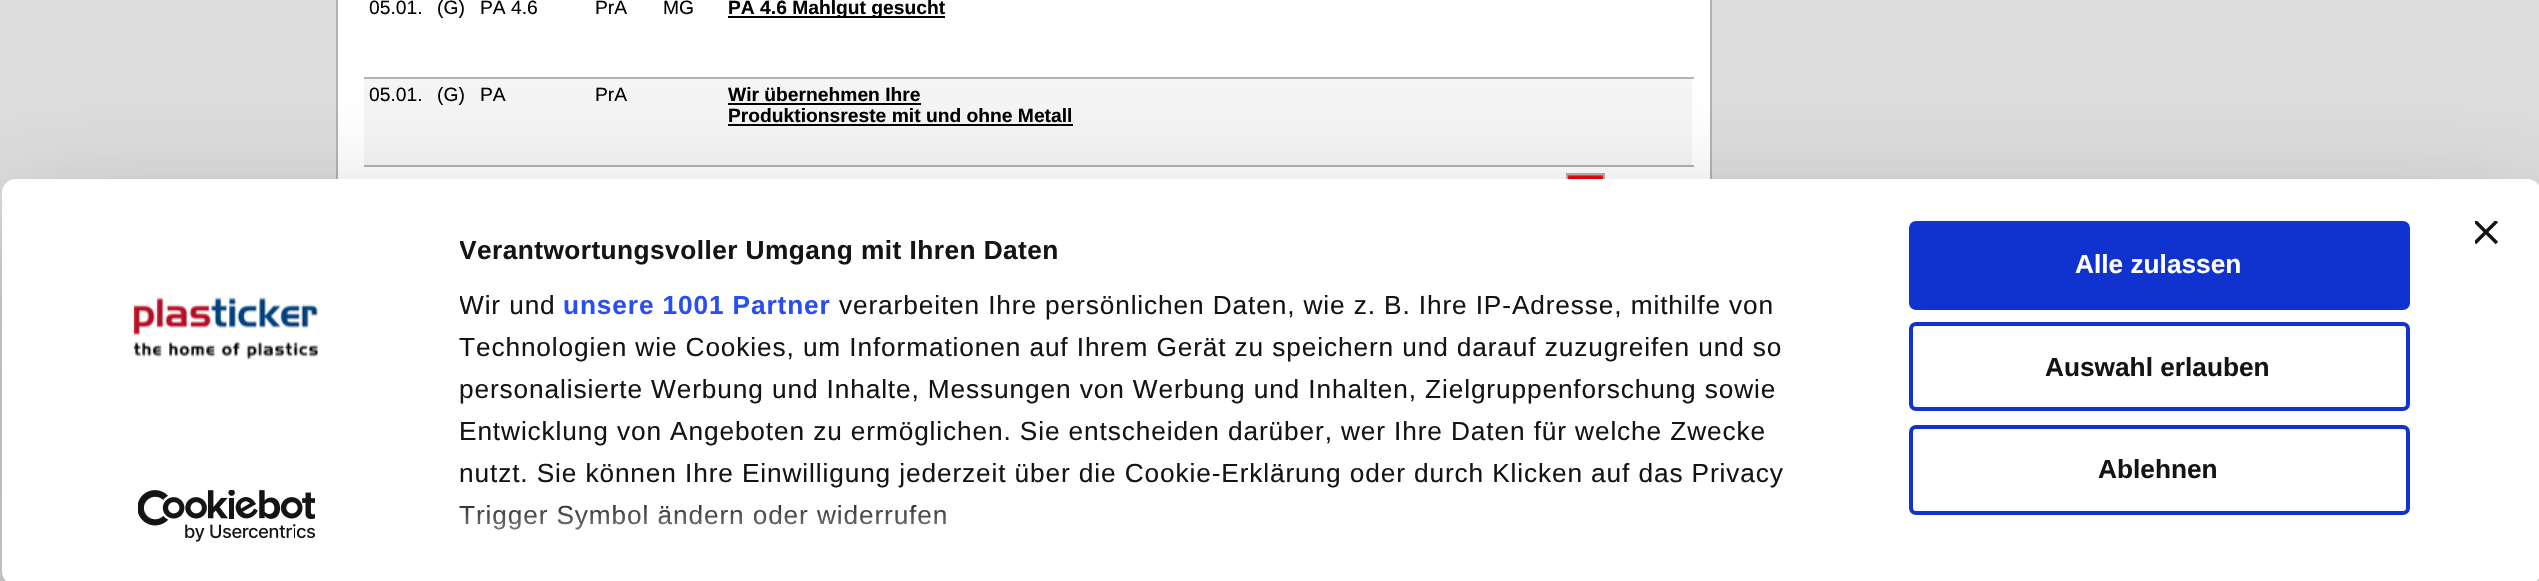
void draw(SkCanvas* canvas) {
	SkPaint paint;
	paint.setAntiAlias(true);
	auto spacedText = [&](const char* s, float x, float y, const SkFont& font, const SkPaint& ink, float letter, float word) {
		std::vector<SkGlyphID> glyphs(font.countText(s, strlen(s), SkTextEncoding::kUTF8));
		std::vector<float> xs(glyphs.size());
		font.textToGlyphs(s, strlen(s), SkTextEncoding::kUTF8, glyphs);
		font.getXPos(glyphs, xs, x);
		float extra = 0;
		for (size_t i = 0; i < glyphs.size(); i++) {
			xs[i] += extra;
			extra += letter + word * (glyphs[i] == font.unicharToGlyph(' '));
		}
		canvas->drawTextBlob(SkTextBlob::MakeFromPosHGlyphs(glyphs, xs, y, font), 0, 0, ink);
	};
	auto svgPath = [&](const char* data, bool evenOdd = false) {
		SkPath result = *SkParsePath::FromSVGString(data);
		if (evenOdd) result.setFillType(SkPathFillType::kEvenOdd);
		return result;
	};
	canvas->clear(0xffdddddd);
	paint.setColor(0xffffffff);
	canvas->drawRect(SkRect::MakeXYWH(338, 0, 1372, 179), paint);
	paint.setStroke(true);
	paint.setStrokeWidth(2);
	paint.setColor(0xffb2b2b2);
	canvas->drawRect(SkRect::MakeXYWH(337, -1, 1374, 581), paint);
	SkFont f1(fontMgr->matchFamilyStyle("Liberation Sans", SkFontStyle::Normal()), 19.25);
	f1.setSubpixel(true);
	paint.setStroke(false);
	paint.setColor(0xff000000);
	canvas->drawString("05.01.", 369, 14, f1, paint);
	canvas->drawString("(G)", 437, 14, f1, paint);
	canvas->drawString("PA 4.6", 480, 14, f1, paint);
	canvas->drawString("PrA", 595, 14, f1, paint);
	canvas->drawString("MG", 663, 14, f1, paint);
	canvas->drawRect(SkRect::MakeXYWH(728, 16, 217, 2), paint);
	SkFont f2(fontMgr->matchFamilyStyle("Liberation Sans", SkFontStyle::Bold()), 19.25);
	f2.setSubpixel(true);
	canvas->drawString("PA 4.6 Mahlgut gesucht", 728, 14, f2, paint);
	paint.setColor(0xffb2b2b2);
	canvas->drawRect(SkRect::MakeXYWH(364, 77, 1330, 2), paint);
	paint.setColor(0xfff5f5f5);
	canvas->drawRect(SkRect::MakeXYWH(364, 79, 1328, 86), paint);
	paint.setColor(0xff000000);
	canvas->drawString("05.01.", 369, 101, f1, paint);
	canvas->drawString("(G)", 437, 101, f1, paint);
	canvas->drawString("PA", 480, 101, f1, paint);
	canvas->drawString("PrA", 595, 101, f1, paint);
	canvas->drawString("Wir übernehmen Ihre", 728, 101, f2, paint);
	canvas->drawRect(SkRect::MakeXYWH(728, 103, 193, 2), paint);
	canvas->drawString("Produktionsreste mit und ohne Metall", 728, 122, f2, paint);
	canvas->drawRect(SkRect::MakeXYWH(728, 124, 345, 2), paint);
	paint.setColor(0xffb2b2b2);
	canvas->drawRect(SkRect::MakeXYWH(364, 165, 1330, 2), paint);
	paint.setStroke(true);
	canvas->drawRect(SkRect::MakeXYWH(1567, 174, 37, 23), paint);
	canvas->drawImageRect(SkImages::DeferredFromEncodedData(SkData::MakeFromFileName("img1.png")), SkRect::MakeXYWH(1568, 175, 35, 4), SkSamplingOptions());
	canvas->save();
	canvas->clipPath(svgPath("M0 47H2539V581H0ZM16 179H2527C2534.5 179 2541 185.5 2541 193V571C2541 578.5 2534.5 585 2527 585H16C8.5 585 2 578.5 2 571V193C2 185.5 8.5 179 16 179Z", true), true);
	paint.setStroke(false);
	paint.setColor(0x4d000000);
	paint.setMaskFilter(SkMaskFilter::MakeBlur(kNormal_SkBlurStyle, 61));
	canvas->drawRoundRect(SkRect::MakeXYWH(2, 231, 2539, 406), 14, 14, paint);
	paint.setMaskFilter(nullptr);
	canvas->restore();
	paint.setColor(0xffffffff);
	canvas->drawRoundRect(SkRect::MakeXYWH(2, 179, 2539, 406), 14, 14, paint);
	canvas->drawImageRect(SkImages::DeferredFromEncodedData(SkData::MakeFromFileName("img2.png")), SkRect::MakeXYWH(2475, 221, 23, 24), SkSamplingOptions());
	canvas->drawImageRect(SkImages::DeferredFromEncodedData(SkData::MakeFromFileName("img3.png")), SkRect::MakeXYWH(133, 297, 185, 63), SkSamplingOptions());
	canvas->drawImageRect(SkImages::DeferredFromEncodedData(SkData::MakeFromFileName("img4.png")), SkRect::MakeXYWH(138, 490, 177, 52), SkSamplingOptions());
	canvas->save();
	canvas->clipRect(SkRect::MakeXYWH(460, 229, 1399, 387));
	SkFont f3(fontMgr->matchFamilyStyle("Liberation Sans", SkFontStyle::Bold()), 26.25);
	f3.setSubpixel(true);
	paint.setColor(0xff141414);
	spacedText("Verantwortungsvoller Umgang mit Ihren Daten", 459, 259, f3, paint, 0.45, 0);
	SkFont f4(fontMgr->matchFamilyStyle("Liberation Sans", SkFontStyle::Normal()), 26.25);
	f4.setSubpixel(true);
	spacedText("Wir und", 459, 314, f4, paint, 0.88, 0);
	canvas->restore();
	paint.setColor(0xff2a4eef);
	spacedText("unsere 1001 Partner", 563, 314, f3, paint, 0.88, 0);
	paint.setColor(0xff141414);
	spacedText("verarbeiten Ihre persönlichen Daten, wie z. B. Ihre IP-Adresse, mithilfe von", 839, 314, f4, paint, 0.88, 0);
	spacedText("Technologien wie Cookies, um Informationen auf Ihrem Gerät zu speichern und darauf zuzugreifen und so", 459, 356, f4, paint, 0.88, 0);
	spacedText("personalisierte Werbung und Inhalte, Messungen von Werbung und Inhalten, Zielgruppenforschung sowie", 459, 398, f4, paint, 0.88, 0);
	spacedText("Entwicklung von Angeboten zu ermöglichen. Sie entscheiden darüber, wer Ihre Daten für welche Zwecke", 459, 440, f4, paint, 0.88, 0);
	spacedText("nutzt. Sie können Ihre Einwilligung jederzeit über die Cookie-Erklärung oder durch Klicken auf das Privacy", 459, 482, f4, paint, 0.88, 0);
	spacedText("Trigger Symbol ändern oder widerrufen", 459, 524, f4, paint, 0.88, 0);
	{
		const SkColor colors[] = {0xffffffff, 0xccffffff, 0x00ffffff};
		const float stops[] = {0, 0.5, 1};
		const SkPoint ends[] = {{1141, 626}, {1141, 495}};
		paint.setShader(SkGradientShader::MakeLinear(ends, colors, stops, 3, SkTileMode::kClamp));
		paint.setAlpha(255);
	}
	canvas->drawRect(SkRect::MakeXYWH(459, 505, 487, 25), paint);
	paint.setShader(nullptr);
	paint.setColor(0xff1032cf);
	canvas->drawRoundRect(SkRect::MakeXYWH(1911, 223, 497, 85), 5, 5, paint);
	paint.setStroke(true);
	paint.setStrokeWidth(4);
	canvas->drawRoundRect(SkRect::MakeXYWH(1911, 223, 497, 85), 5, 5, paint);
	paint.setStroke(false);
	paint.setColor(0xffffffff);
	canvas->drawString("Alle zulassen", 2075, 273, f3, paint);
	paint.setStroke(true);
	paint.setColor(0xff1032cf);
	canvas->drawRoundRect(SkRect::MakeXYWH(1911, 324, 497, 85), 5, 5, paint);
	paint.setStroke(false);
	paint.setColor(0xff141414);
	canvas->drawString("Auswahl erlauben", 2045, 376, f3, paint);
	paint.setStroke(true);
	paint.setColor(0xff1032cf);
	canvas->drawRoundRect(SkRect::MakeXYWH(1911, 427, 497, 86), 5, 5, paint);
	paint.setStroke(false);
	paint.setColor(0xff141414);
	canvas->drawString("Ablehnen", 2098, 478, f3, paint);
}
